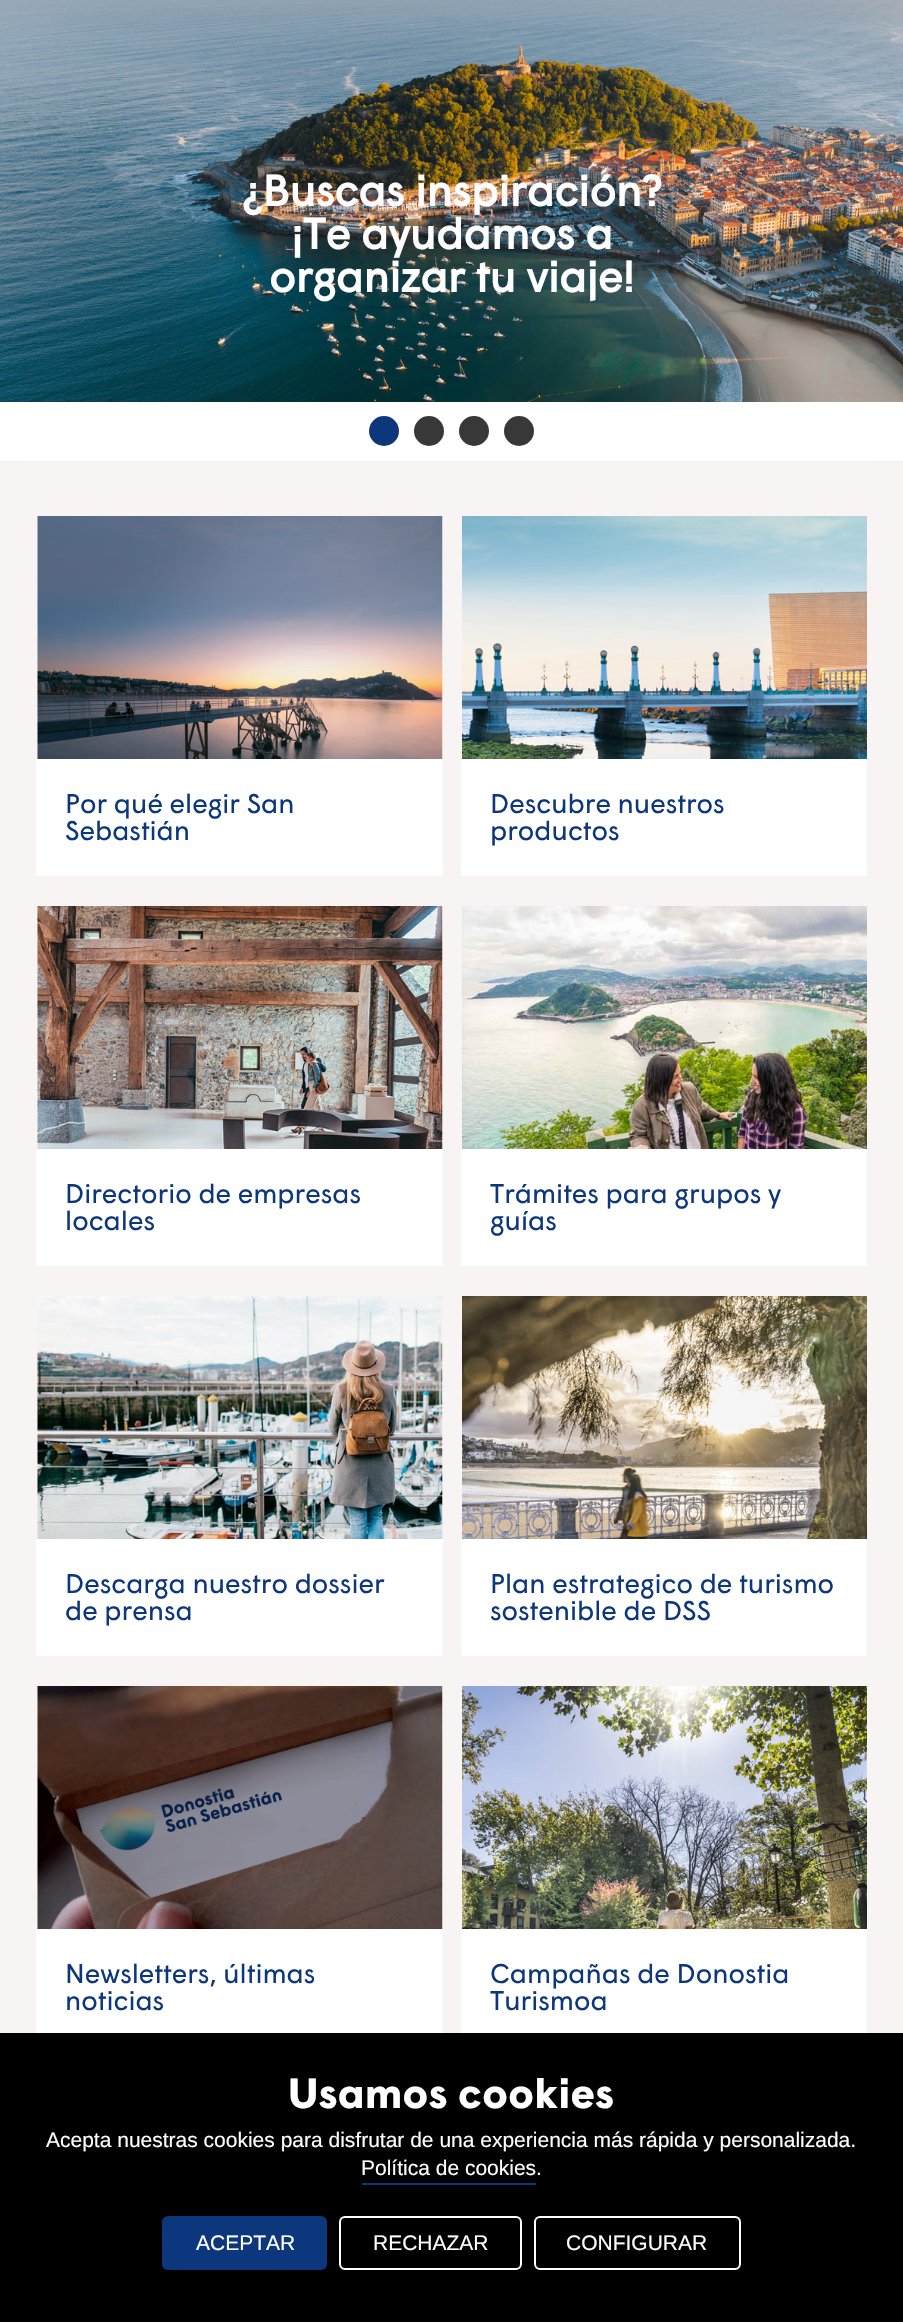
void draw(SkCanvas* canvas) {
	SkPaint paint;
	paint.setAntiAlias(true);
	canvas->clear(0xfff7f4f3);
	paint.setColor(0xffffffff);
	canvas->drawRect(SkRect::MakeXYWH(0, 402, 903, 59), paint);
	paint.setColor(0xfff2f2f2);
	canvas->drawRect(SkRect::MakeXYWH(0, 461, 903, 2), paint);
	canvas->drawImageRect(SkImages::DeferredFromEncodedData(SkData::MakeFromFileName("img1.png")), SkRect::MakeXYWH(0, 0, 903, 402), SkSamplingOptions());
	SkFont f1(fontMgr->matchFamilyStyle("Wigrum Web", SkFontStyle::Bold()), 43.25);
	f1.setSubpixel(true);
	paint.setColor(0xffffffff);
	canvas->drawString("¿Buscas inspiración?", 243, 206, f1, paint);
	canvas->drawString("¡Te ayudamos a", 291, 249, f1, paint);
	canvas->drawString("organizar tu viaje!", 269, 292, f1, paint);
	paint.setColor(0xff0d377d);
	canvas->drawCircle(384, 431, 15, paint);
	paint.setColor(0xff383838);
	canvas->drawCircle(429, 431, 15, paint);
	canvas->drawCircle(474, 431, 15, paint);
	canvas->drawCircle(519, 431, 15, paint);
	paint.setColor(0xfff7f4f3);
	canvas->drawRect(SkRect::MakeXYWH(27, 462, 849, 1), paint);
	canvas->drawImageRect(SkImages::DeferredFromEncodedData(SkData::MakeFromFileName("img2.png")), SkRect::MakeXYWH(37, 516, 406, 243), SkSamplingOptions());
	paint.setColor(0xffffffff);
	canvas->drawRect(SkRect::MakeXYWH(36, 759, 407, 117), paint);
	SkFont f2(fontMgr->matchFamilyStyle("Wigrum Web", SkFontStyle::Normal()), 27);
	f2.setSubpixel(true);
	paint.setColor(0xff0d377d);
	canvas->drawString("Por qué elegir San", 65, 813, f2, paint);
	canvas->drawString("Sebastián", 65, 840, f2, paint);
	canvas->drawImageRect(SkImages::DeferredFromEncodedData(SkData::MakeFromFileName("img3.png")), SkRect::MakeXYWH(462, 516, 405, 243), SkSamplingOptions());
	paint.setColor(0xffffffff);
	canvas->drawRect(SkRect::MakeXYWH(461, 759, 406, 117), paint);
	paint.setColor(0xff0d377d);
	canvas->drawString("Descubre nuestros", 490, 813, f2, paint);
	canvas->drawString("productos", 490, 840, f2, paint);
	canvas->drawImageRect(SkImages::DeferredFromEncodedData(SkData::MakeFromFileName("img4.png")), SkRect::MakeXYWH(37, 906, 406, 243), SkSamplingOptions());
	paint.setColor(0xffffffff);
	canvas->drawRect(SkRect::MakeXYWH(36, 1149, 407, 117), paint);
	paint.setColor(0xff0d377d);
	canvas->drawString("Directorio de empresas", 65, 1203, f2, paint);
	canvas->drawString("locales", 65, 1230, f2, paint);
	canvas->drawImageRect(SkImages::DeferredFromEncodedData(SkData::MakeFromFileName("img5.png")), SkRect::MakeXYWH(462, 906, 405, 243), SkSamplingOptions());
	paint.setColor(0xffffffff);
	canvas->drawRect(SkRect::MakeXYWH(461, 1149, 406, 117), paint);
	paint.setColor(0xff0d377d);
	canvas->drawString("Trámites para grupos y", 490, 1203, f2, paint);
	canvas->drawString("guías", 490, 1230, f2, paint);
	canvas->drawImageRect(SkImages::DeferredFromEncodedData(SkData::MakeFromFileName("img6.png")), SkRect::MakeXYWH(37, 1296, 406, 243), SkSamplingOptions());
	paint.setColor(0xffffffff);
	canvas->drawRect(SkRect::MakeXYWH(36, 1539, 407, 117), paint);
	paint.setColor(0xff0d377d);
	canvas->drawString("Descarga nuestro dossier", 65, 1593, f2, paint);
	canvas->drawString("de prensa", 65, 1620, f2, paint);
	canvas->drawImageRect(SkImages::DeferredFromEncodedData(SkData::MakeFromFileName("img7.png")), SkRect::MakeXYWH(462, 1296, 405, 243), SkSamplingOptions());
	paint.setColor(0xffffffff);
	canvas->drawRect(SkRect::MakeXYWH(461, 1539, 406, 117), paint);
	paint.setColor(0xff0d377d);
	canvas->drawString("Plan estrategico de turismo", 490, 1593, f2, paint);
	canvas->drawString("sostenible de DSS", 490, 1620, f2, paint);
	canvas->drawImageRect(SkImages::DeferredFromEncodedData(SkData::MakeFromFileName("img8.png")), SkRect::MakeXYWH(37, 1686, 406, 243), SkSamplingOptions());
	paint.setColor(0xffffffff);
	canvas->drawRect(SkRect::MakeXYWH(36, 1929, 407, 104), paint);
	paint.setColor(0xff0d377d);
	canvas->drawString("Newsletters, últimas", 65, 1983, f2, paint);
	canvas->drawString("noticias", 65, 2010, f2, paint);
	canvas->drawImageRect(SkImages::DeferredFromEncodedData(SkData::MakeFromFileName("img9.png")), SkRect::MakeXYWH(462, 1686, 405, 243), SkSamplingOptions());
	paint.setColor(0xffffffff);
	canvas->drawRect(SkRect::MakeXYWH(461, 1929, 406, 104), paint);
	paint.setColor(0xff0d377d);
	canvas->drawString("Campañas de Donostia", 490, 1983, f2, paint);
	canvas->drawString("Turismoa", 490, 2010, f2, paint);
	paint.setColor(0xff000000);
	canvas->drawRect(SkRect::MakeXYWH(0, 2033, 903, 289), paint);
	SkFont f3(fontMgr->matchFamilyStyle("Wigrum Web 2", SkFontStyle::Bold()), 42);
	f3.setSubpixel(true);
	paint.setColor(0xffffffff);
	canvas->drawString("Usamos cookies", 288, 2108, f3, paint);
	SkFont f4(fontMgr->matchFamilyStyle("Liberation Sans", SkFontStyle::Normal()), 21);
	f4.setSubpixel(true);
	canvas->drawString("Acepta nuestras cookies para disfrutar de una experiencia más rápida y personalizada.", 46, 2147, f4, paint);
	paint.setColor(0xff0d377d);
	canvas->drawRect(SkRect::MakeXYWH(362, 2183, 174, 2), paint);
	paint.setColor(0xffffffff);
	canvas->drawString("Política de cookies", 361, 2175, f4, paint);
	canvas->drawString(".", 536, 2175, f4, paint);
	paint.setColor(0xff0d377d);
	canvas->drawRoundRect(SkRect::MakeXYWH(162, 2216, 165, 54), 6, 6, paint);
	paint.setColor(0xffffffff);
	canvas->drawString("ACEPTAR", 196, 2250, f4, paint);
	paint.setStroke(true);
	paint.setStrokeWidth(2);
	canvas->drawRoundRect(SkRect::MakeXYWH(340, 2217, 181, 52), 5, 5, paint);
	paint.setStroke(false);
	canvas->drawString("RECHAZAR", 373, 2250, f4, paint);
	paint.setStroke(true);
	canvas->drawRoundRect(SkRect::MakeXYWH(535, 2217, 205, 52), 5, 5, paint);
	paint.setStroke(false);
	canvas->drawString("CONFIGURAR", 566, 2250, f4, paint);
}
